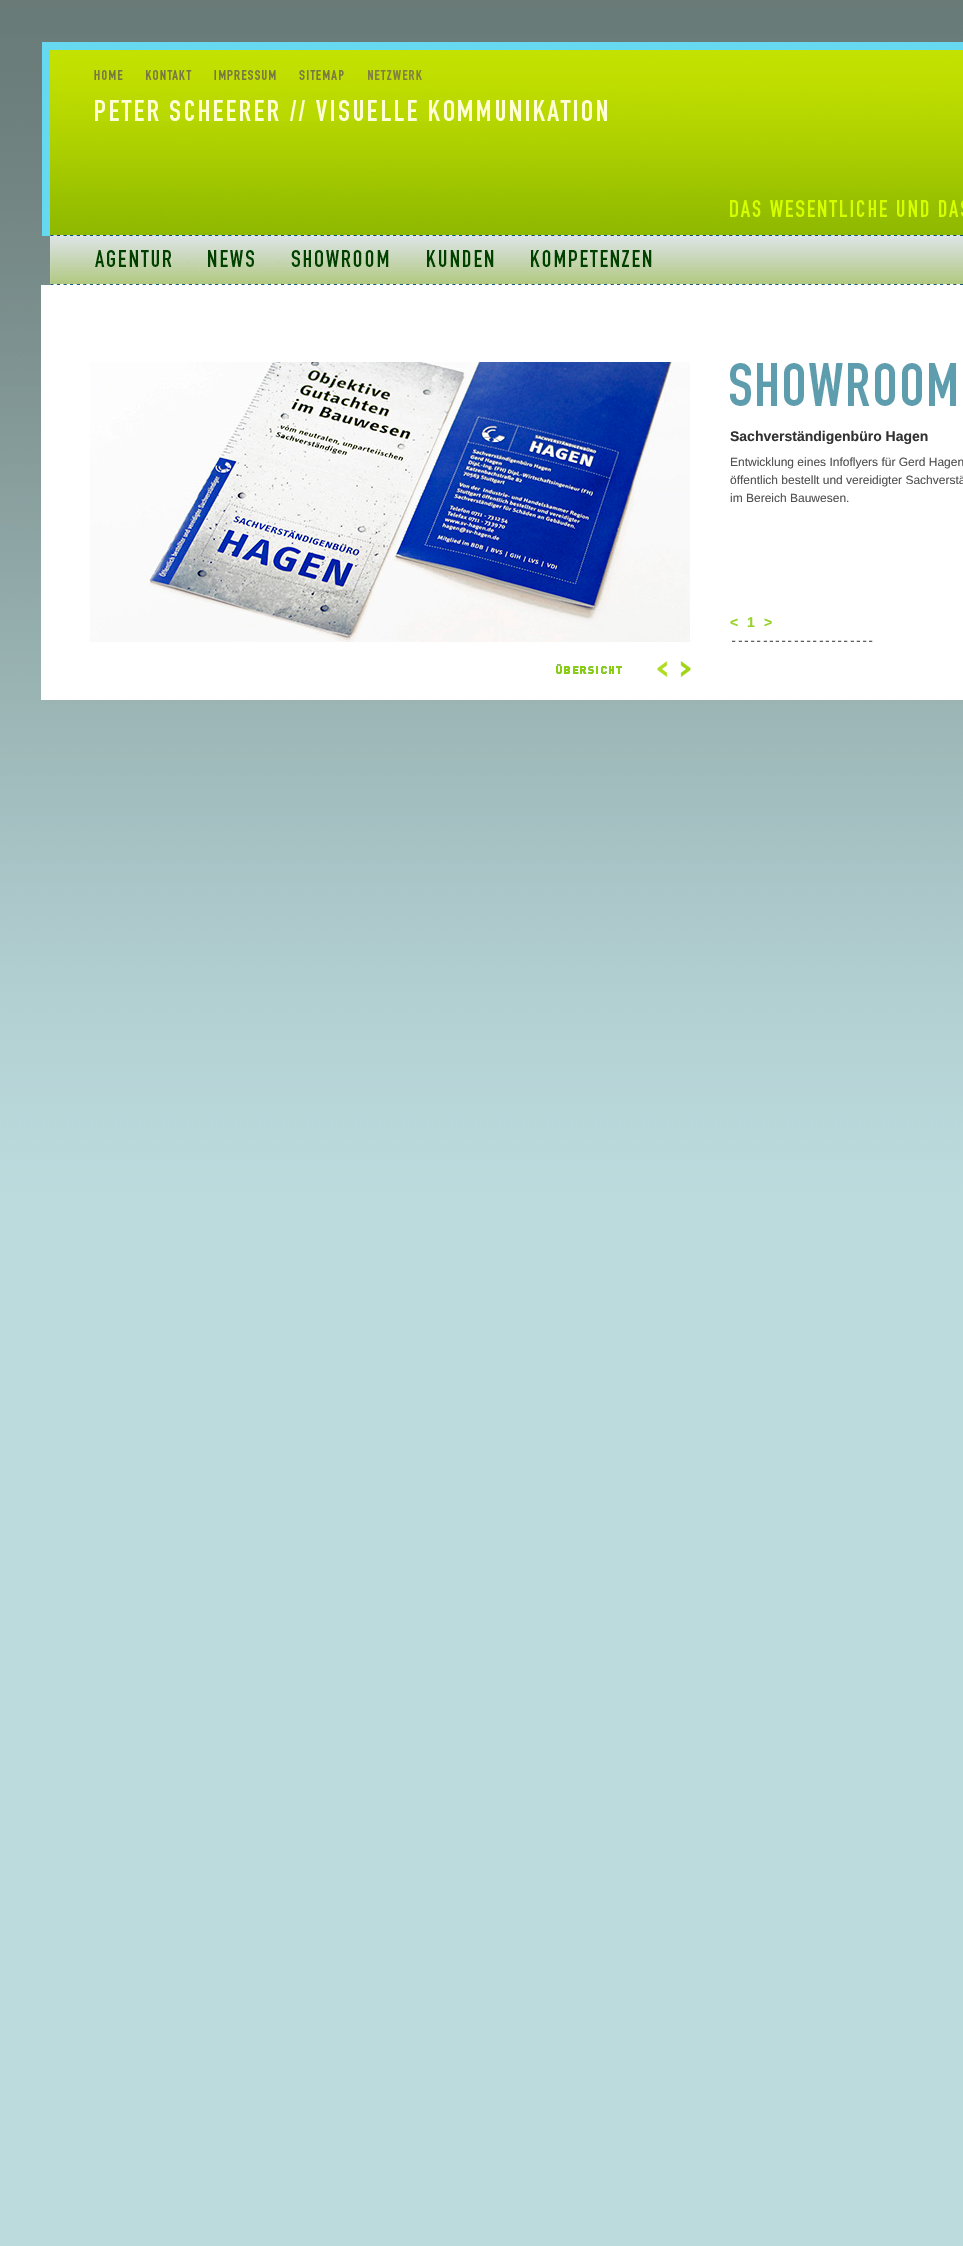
void draw(SkCanvas* canvas) {
	SkPaint paint;
	paint.setAntiAlias(true);
	canvas->clear(0xffffffff);
	canvas->drawImageRect(SkImages::DeferredFromEncodedData(SkData::MakeFromFileName("img1.png")), SkRect::MakeXYWH(0, 0, 963, 2246), SkSamplingOptions());
	paint.setColor(0xff66d9f1);
	canvas->drawRect(SkRect::MakeXYWH(42, 42, 921, 194), paint);
	canvas->drawImageRect(SkImages::DeferredFromEncodedData(SkData::MakeFromFileName("img2.png")), SkRect::MakeXYWH(50, 50, 913, 185), SkSamplingOptions());
	canvas->drawImageRect(SkImages::DeferredFromEncodedData(SkData::MakeFromFileName("img3.png")), SkRect::MakeXYWH(50, 235, 913, 50), SkSamplingOptions());
	canvas->drawImageRect(SkImages::DeferredFromEncodedData(SkData::MakeFromFileName("img4.png")), SkRect::MakeXYWH(94, 70, 29, 10), SkSamplingOptions());
	canvas->drawImageRect(SkImages::DeferredFromEncodedData(SkData::MakeFromFileName("img5.png")), SkRect::MakeXYWH(146, 70, 46, 10), SkSamplingOptions());
	canvas->drawImageRect(SkImages::DeferredFromEncodedData(SkData::MakeFromFileName("img6.png")), SkRect::MakeXYWH(214, 70, 62, 10), SkSamplingOptions());
	canvas->drawImageRect(SkImages::DeferredFromEncodedData(SkData::MakeFromFileName("img7.png")), SkRect::MakeXYWH(299, 70, 45, 10), SkSamplingOptions());
	canvas->drawImageRect(SkImages::DeferredFromEncodedData(SkData::MakeFromFileName("img8.png")), SkRect::MakeXYWH(368, 70, 54, 10), SkSamplingOptions());
	canvas->drawImageRect(SkImages::DeferredFromEncodedData(SkData::MakeFromFileName("img9.png")), SkRect::MakeXYWH(95, 100, 512, 21), SkSamplingOptions());
	canvas->drawImageRect(SkImages::DeferredFromEncodedData(SkData::MakeFromFileName("img10.png")), SkRect::MakeXYWH(730, 200, 233, 17), SkSamplingOptions());
	canvas->drawImageRect(SkImages::DeferredFromEncodedData(SkData::MakeFromFileName("img11.png")), SkRect::MakeXYWH(95, 250, 77, 17), SkSamplingOptions());
	canvas->drawImageRect(SkImages::DeferredFromEncodedData(SkData::MakeFromFileName("img12.png")), SkRect::MakeXYWH(208, 250, 46, 17), SkSamplingOptions());
	canvas->drawImageRect(SkImages::DeferredFromEncodedData(SkData::MakeFromFileName("img13.png")), SkRect::MakeXYWH(291, 250, 98, 17), SkSamplingOptions());
	canvas->drawImageRect(SkImages::DeferredFromEncodedData(SkData::MakeFromFileName("img14.png")), SkRect::MakeXYWH(427, 250, 67, 17), SkSamplingOptions());
	canvas->drawImageRect(SkImages::DeferredFromEncodedData(SkData::MakeFromFileName("img15.png")), SkRect::MakeXYWH(531, 250, 121, 17), SkSamplingOptions());
	paint.setColor(0xffffffff);
	canvas->drawRect(SkRect::MakeXYWH(41, 285, 922, 415), paint);
	canvas->drawImageRect(SkImages::DeferredFromEncodedData(SkData::MakeFromFileName("img16.png")), SkRect::MakeXYWH(90, 362, 600, 280), SkSamplingOptions());
	canvas->drawImageRect(SkImages::DeferredFromEncodedData(SkData::MakeFromFileName("img17.png")), SkRect::MakeXYWH(730, 363, 226, 43), SkSamplingOptions());
	SkFont f1(fontMgr->matchFamilyStyle("Liberation Sans", SkFontStyle::Bold()), 14);
	f1.setSubpixel(true);
	paint.setColor(0xff323232);
	canvas->drawString("Sachverständigenbüro Hagen", 730, 441, f1, paint);
	SkFont f2(fontMgr->matchFamilyStyle("Liberation Sans", SkFontStyle::Normal()), 12);
	f2.setSubpixel(true);
	paint.setColor(0xff505050);
	canvas->drawString("Entwicklung eines Infoflyers für Gerd Hagen", 730, 466, f2, paint);
	canvas->drawString("öffentlich bestellt und vereidigter Sachverstä", 730, 484, f2, paint);
	canvas->drawString("im Bereich Bauwesen.", 730, 502, f2, paint);
	paint.setColor(0xff96d228);
	canvas->drawString("<", 730, 627, f1, paint);
	canvas->drawString("1", 747, 627, f1, paint);
	canvas->drawString(">", 764, 627, f1, paint);
	canvas->drawImageRect(SkImages::DeferredFromEncodedData(SkData::MakeFromFileName("img18.png")), SkRect::MakeXYWH(732, 640, 141, 2), SkSamplingOptions());
	canvas->drawImageRect(SkImages::DeferredFromEncodedData(SkData::MakeFromFileName("img19.png")), SkRect::MakeXYWH(556, 664, 66, 10), SkSamplingOptions());
	canvas->drawImageRect(SkImages::DeferredFromEncodedData(SkData::MakeFromFileName("img20.png")), SkRect::MakeXYWH(657, 661, 11, 17), SkSamplingOptions());
	canvas->drawImageRect(SkImages::DeferredFromEncodedData(SkData::MakeFromFileName("img21.png")), SkRect::MakeXYWH(680, 660, 11, 18), SkSamplingOptions());
}
